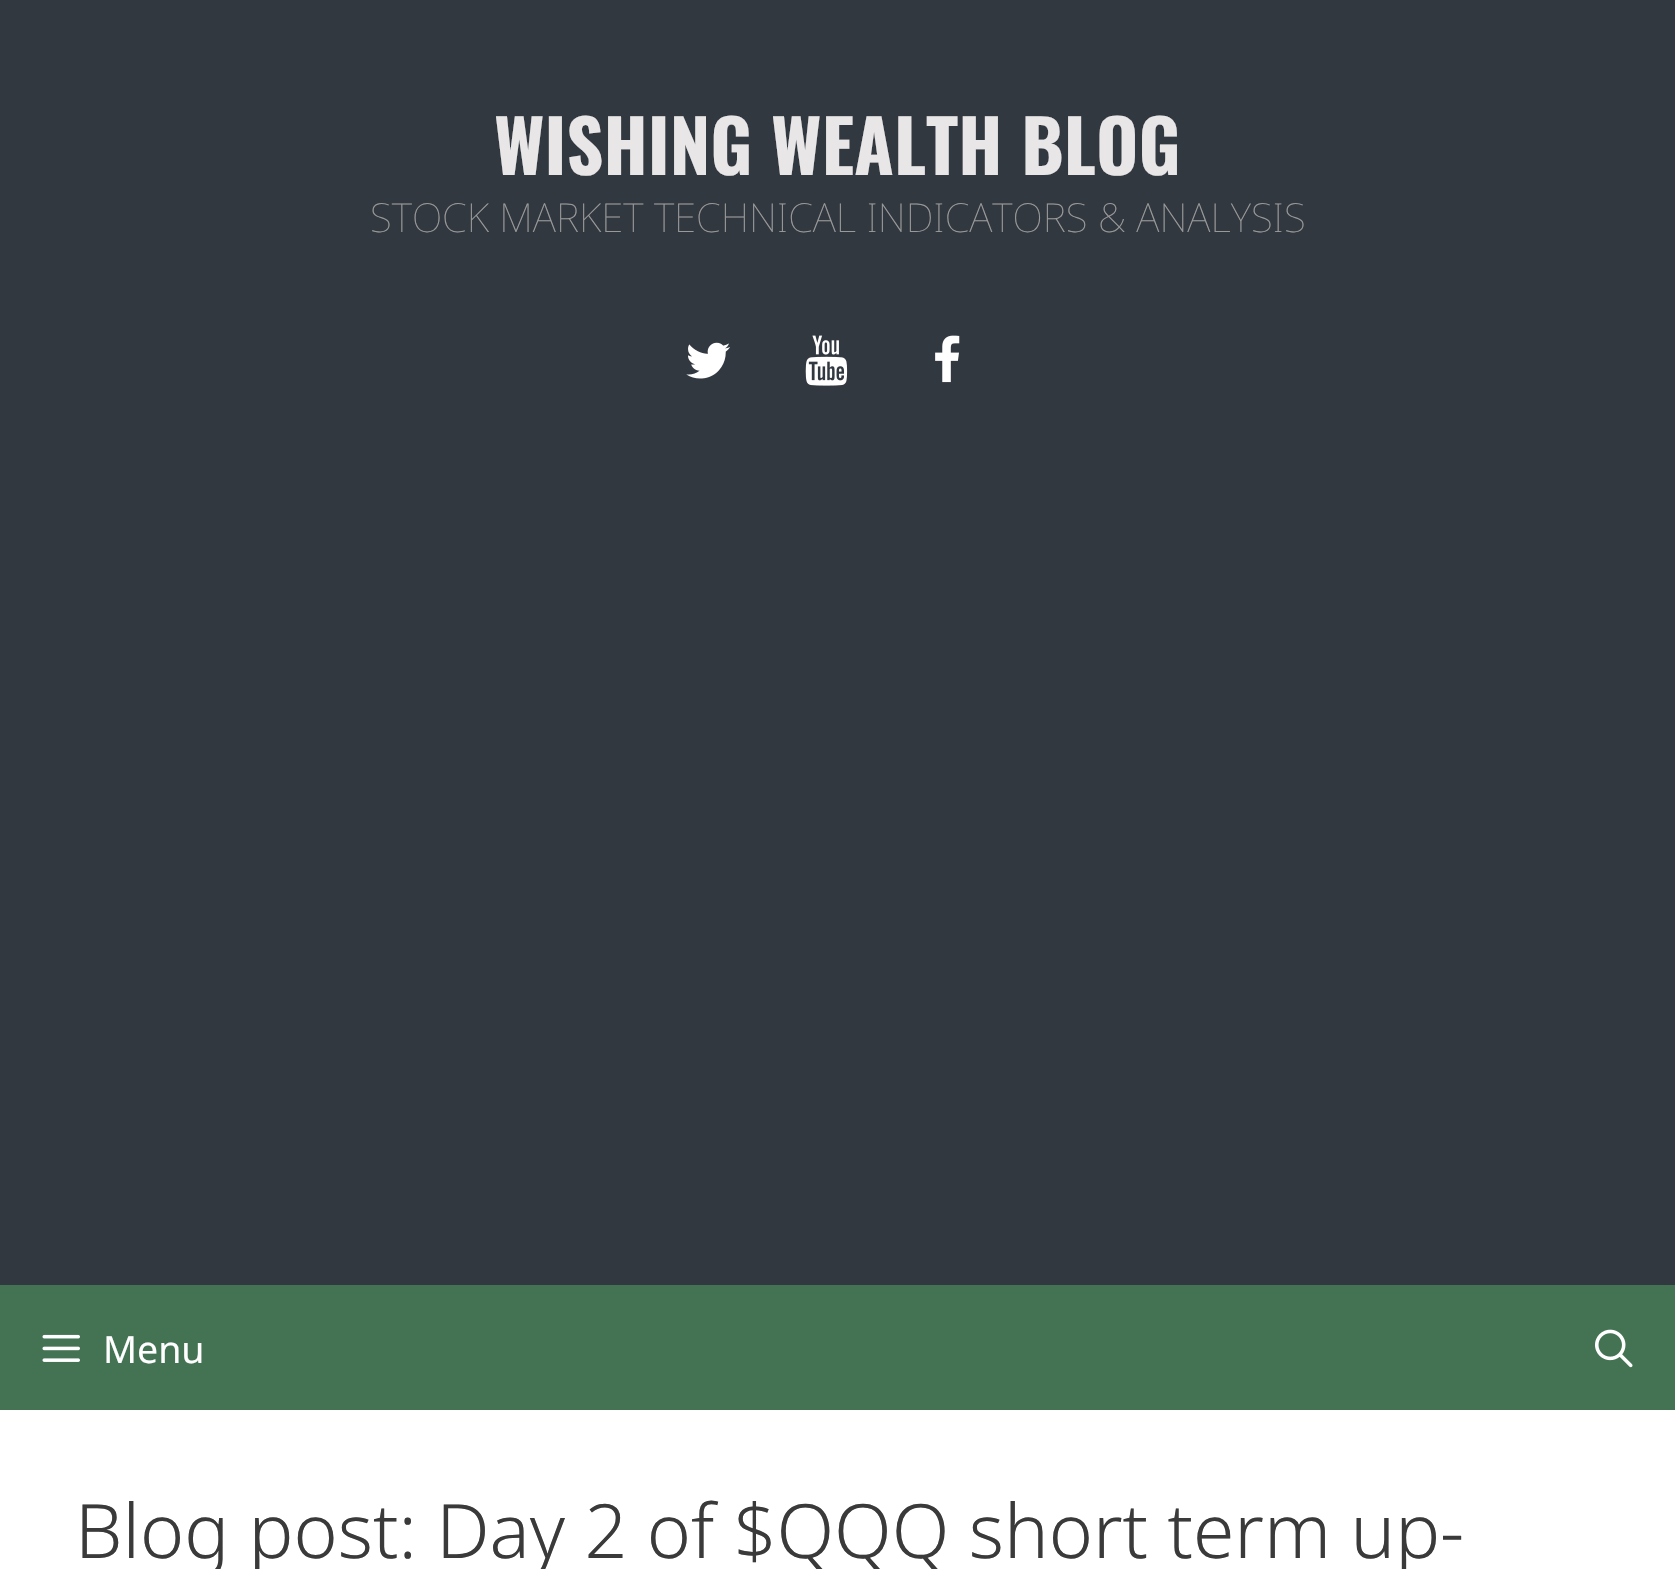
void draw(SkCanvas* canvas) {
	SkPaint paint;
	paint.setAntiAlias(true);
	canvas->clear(0xff323840);
	SkFont f1(fontMgr->matchFamilyStyle("Oswald", SkFontStyle::Bold()), 72.5);
	f1.setSubpixel(true);
	paint.setColor(0xffe8e6e6);
	canvas->drawString("WISHING WEALTH BLOG", 494, 175, f1, paint);
	SkFont f2(fontMgr->matchFamilyStyle("Noto Sans", SkFontStyle(100, SkFontStyle::kNormal_Width, SkFontStyle::kUpright_Slant)), 40);
	f2.setSubpixel(true);
	paint.setColor(0xff999999);
	canvas->drawString("STOCK MARKET TECHNICAL INDICATORS & ANALYSIS", 370, 232, f2, paint);
	canvas->drawImageRect(SkImages::DeferredFromEncodedData(SkData::MakeFromFileName("img1.png")), SkRect::MakeXYWH(686, 342, 44, 37), SkSamplingOptions());
	canvas->drawImageRect(SkImages::DeferredFromEncodedData(SkData::MakeFromFileName("img2.png")), SkRect::MakeXYWH(805, 335, 43, 51), SkSamplingOptions());
	canvas->drawImageRect(SkImages::DeferredFromEncodedData(SkData::MakeFromFileName("img3.png")), SkRect::MakeXYWH(935, 335, 25, 48), SkSamplingOptions());
	paint.setColor(0xff437353);
	canvas->drawRect(SkRect::MakeXYWH(0, 1285, 1675, 125), paint);
	canvas->drawImageRect(SkImages::DeferredFromEncodedData(SkData::MakeFromFileName("img4.png")), SkRect::MakeXYWH(42, 1334, 38, 28), SkSamplingOptions());
	SkFont f3(fontMgr->matchFamilyStyle("Noto Sans", SkFontStyle::Normal()), 37.5);
	f3.setSubpixel(true);
	paint.setColor(0xffffffff);
	canvas->drawString("Menu", 103, 1363, f3, paint);
	canvas->drawImageRect(SkImages::DeferredFromEncodedData(SkData::MakeFromFileName("img5.png")), SkRect::MakeXYWH(1595, 1329, 38, 39), SkSamplingOptions());
	canvas->drawRect(SkRect::MakeXYWH(0, 1410, 1675, 159), paint);
	SkFont f4(fontMgr->matchFamilyStyle("Noto Sans", SkFontStyle(300, SkFontStyle::kNormal_Width, SkFontStyle::kUpright_Slant)), 75);
	f4.setSubpixel(true);
	paint.setColor(0xff3a3a3a);
	canvas->drawString("Blog post: Day 2 of $QQQ short term up-", 75, 1558, f4, paint);
}
